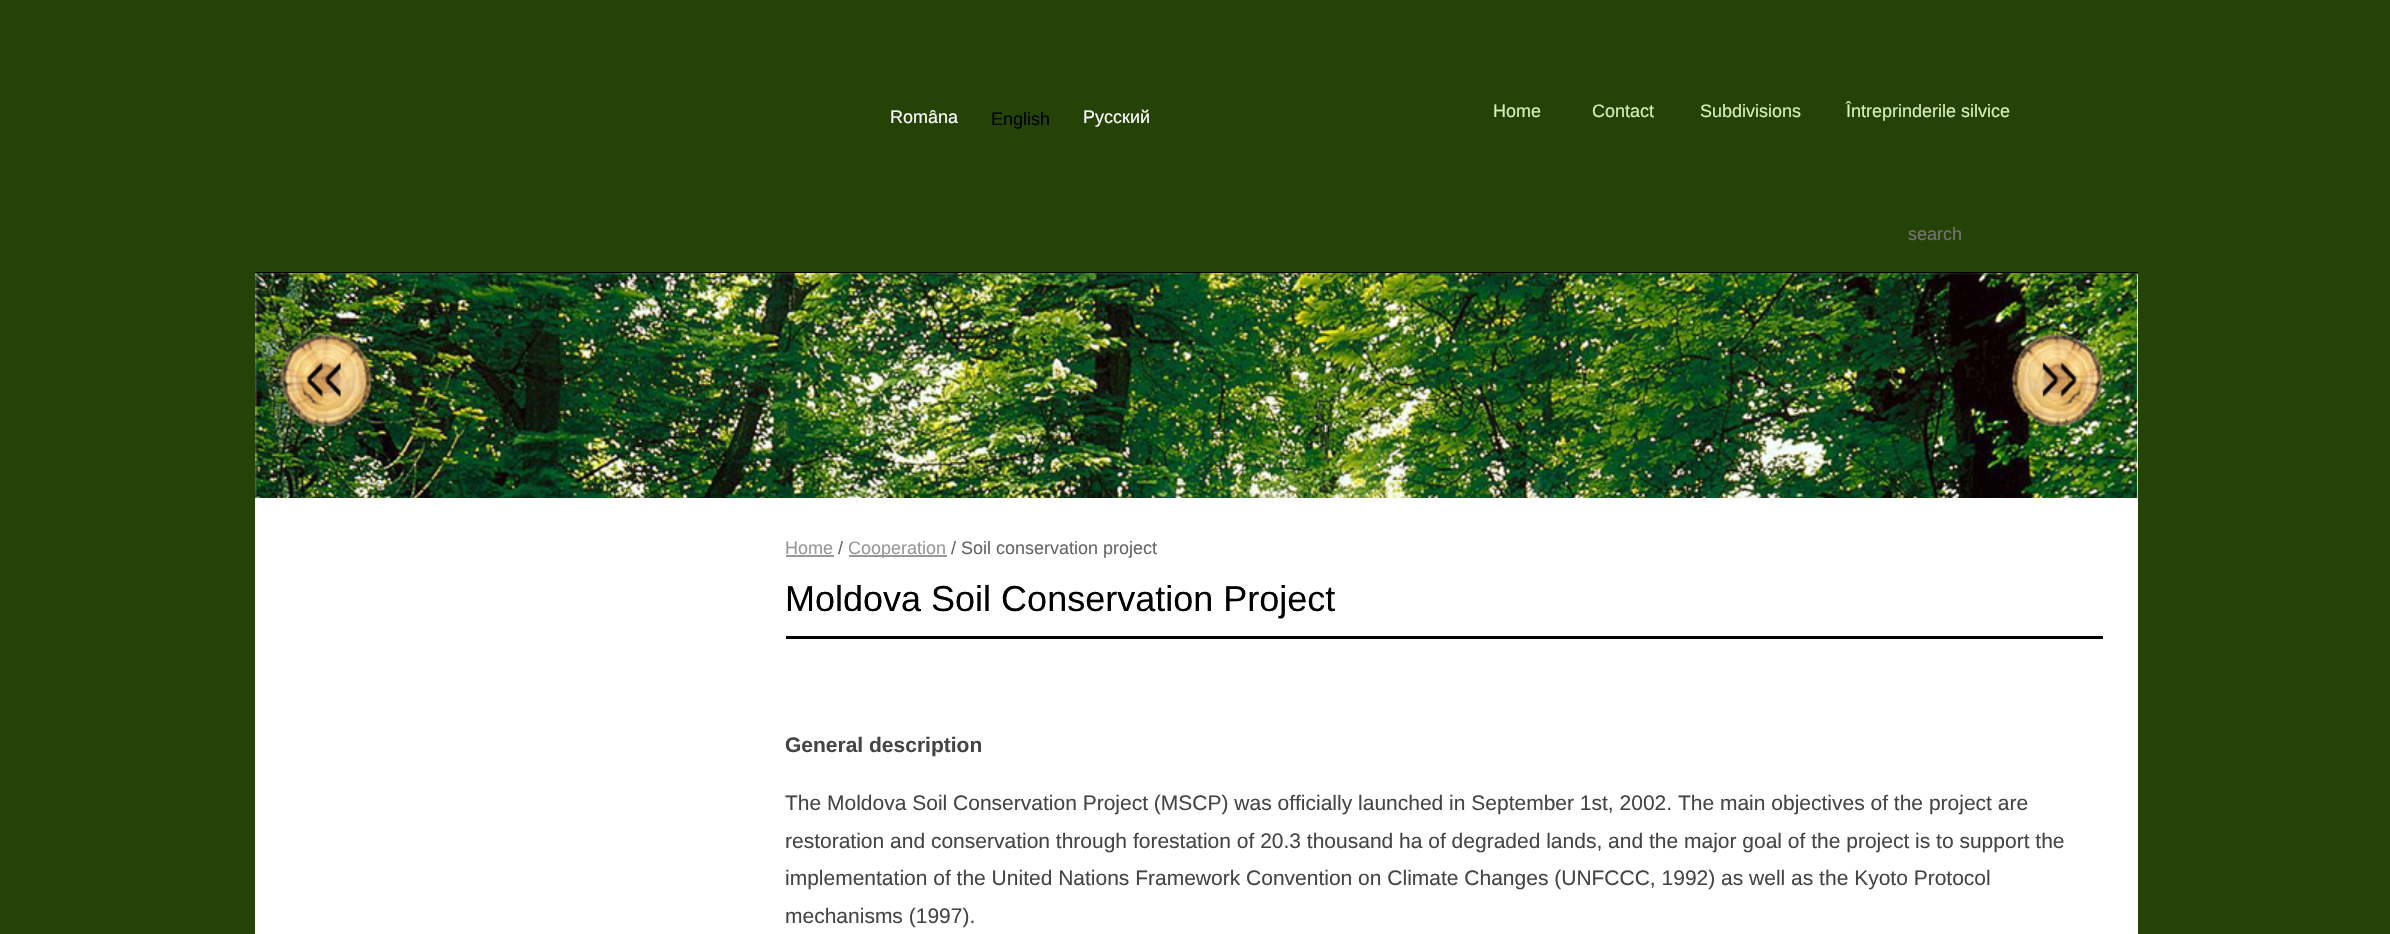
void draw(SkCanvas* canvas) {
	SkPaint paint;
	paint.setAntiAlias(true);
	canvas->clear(0xff254307);
	SkFont f1(fontMgr->matchFamilyStyle("Liberation Sans", SkFontStyle::Normal()), 18);
	f1.setSubpixel(true);
	paint.setColor(0xffffffff);
	canvas->drawString("Româna", 890, 123, f1, paint);
	paint.setColor(0xff000000);
	canvas->drawString("English", 991, 125, f1, paint);
	paint.setColor(0xffffffff);
	canvas->drawString("Русский", 1083, 123, f1, paint);
	paint.setColor(0xffd9eebd);
	canvas->drawString("Home", 1493, 117, f1, paint);
	canvas->drawString("Contact", 1592, 117, f1, paint);
	canvas->drawString("Subdivisions", 1700, 117, f1, paint);
	canvas->drawString("Întreprinderile silvice", 1846, 117, f1, paint);
	paint.setColor(0xff757575);
	canvas->drawString("search", 1908, 240, f1, paint);
	paint.setColor(0xffffffff);
	canvas->drawRect(SkRect::MakeXYWH(255, 274, 1883, 660), paint);
	paint.setColor(0xff000000);
	canvas->drawRect(SkRect::MakeXYWH(255, 272, 1883, 2), paint);
	canvas->drawImageRect(SkImages::DeferredFromEncodedData(SkData::MakeFromFileName("img1.png")), SkRect::MakeXYWH(255, 273, 1883, 225), SkSamplingOptions());
	canvas->drawImageRect(SkImages::DeferredFromEncodedData(SkData::MakeFromFileName("img2.png")), SkRect::MakeXYWH(279, 334, 94, 93), SkSamplingOptions());
	canvas->drawImageRect(SkImages::DeferredFromEncodedData(SkData::MakeFromFileName("img3.png")), SkRect::MakeXYWH(2011, 334, 94, 93), SkSamplingOptions());
	paint.setColor(0xff989898);
	canvas->drawString("Home", 785, 554, f1, paint);
	canvas->drawRect(SkRect::MakeXYWH(786, 555, 48, 2), paint);
	paint.setColor(0xff666666);
	canvas->drawString("/", 838, 554, f1, paint);
	paint.setColor(0xff989898);
	canvas->drawRect(SkRect::MakeXYWH(849, 555, 98, 2), paint);
	canvas->drawString("Cooperation", 848, 554, f1, paint);
	paint.setColor(0xff666666);
	canvas->drawString("/ Soil conservation project", 951, 554, f1, paint);
	paint.setColor(0xff000000);
	canvas->drawRect(SkRect::MakeXYWH(786, 636, 1317, 3), paint);
	SkFont f2(fontMgr->matchFamilyStyle("Liberation Sans", SkFontStyle::Normal()), 36);
	f2.setSubpixel(true);
	canvas->drawString("Moldova Soil Conservation Project", 785, 611, f2, paint);
	SkFont f3(fontMgr->matchFamilyStyle("Liberation Sans", SkFontStyle::Bold()), 21);
	f3.setSubpixel(true);
	paint.setColor(0xff454545);
	canvas->drawString("General description", 785, 752, f3, paint);
	SkFont f4(fontMgr->matchFamilyStyle("Liberation Sans", SkFontStyle::Normal()), 21);
	f4.setSubpixel(true);
	canvas->drawString("The Moldova Soil Conservation Project (MSCP) was officially launched in September 1st, 2002. The main objectives of the project are", 785, 810, f4, paint);
	canvas->drawString("restoration and conservation through forestation of 20.3 thousand ha of degraded lands, and the major goal of the project is to support the", 785, 848, f4, paint);
	canvas->drawString("implementation of the United Nations Framework Convention on Climate Changes (UNFCCC, 1992) as well as the Kyoto Protocol", 785, 885, f4, paint);
	canvas->drawString("mechanisms (1997).", 785, 923, f4, paint);
}
